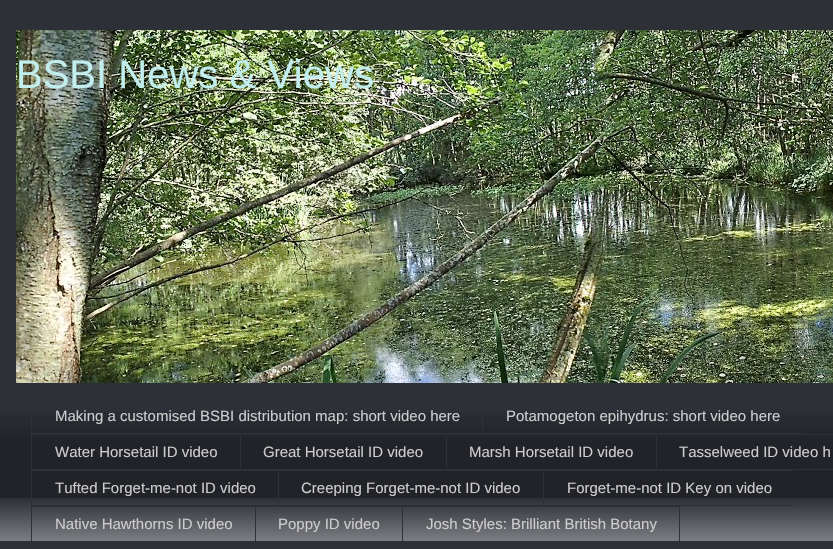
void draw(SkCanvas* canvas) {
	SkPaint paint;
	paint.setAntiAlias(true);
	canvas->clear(0xff2d3037);
	canvas->drawImageRect(SkImages::DeferredFromEncodedData(SkData::MakeFromFileName("img1.png")), SkRect::MakeXYWH(16, 30, 817, 353), SkSamplingOptions());
	SkFont f1(fontMgr->matchFamilyStyle("Liberation Sans", SkFontStyle::Normal()), 40);
	f1.setSubpixel(true);
	paint.setColor(0xffc2eeee);
	canvas->drawString("BSBI News & Views", 16, 88, f1, paint);
	canvas->drawImageRect(SkImages::DeferredFromEncodedData(SkData::MakeFromFileName("img2.png")), SkRect::MakeXYWH(0, 412, 833, 129), SkSamplingOptions());
	paint.setColor(0xff2d3037);
	canvas->drawRect(SkRect::MakeXYWH(31, 433, 772, 1), paint);
	canvas->drawRect(SkRect::MakeXYWH(31, 412, 1, 22), paint);
	SkFont f2(fontMgr->matchFamilyStyle("Liberation Sans", SkFontStyle::Normal()), 15);
	f2.setSubpixel(true);
	paint.setColor(0xffcccccc);
	canvas->drawString("Making a customised BSBI distribution map: short video here", 55, 421, f2, paint);
	paint.setColor(0xff2d3037);
	canvas->drawRect(SkRect::MakeXYWH(482, 412, 1, 22), paint);
	paint.setColor(0xffcccccc);
	canvas->drawString("Potamogeton epihydrus: short video here", 506, 421, f2, paint);
	paint.setColor(0xff2d3037);
	canvas->drawRect(SkRect::MakeXYWH(31, 434, 802, 1), paint);
	canvas->drawRect(SkRect::MakeXYWH(31, 469, 802, 1), paint);
	canvas->drawRect(SkRect::MakeXYWH(31, 434, 1, 36), paint);
	paint.setColor(0xffcccccc);
	canvas->drawString("Water Horsetail ID video", 55, 457, f2, paint);
	paint.setColor(0xff2d3037);
	canvas->drawRect(SkRect::MakeXYWH(240, 434, 1, 36), paint);
	paint.setColor(0xffcccccc);
	canvas->drawString("Great Horsetail ID video", 263, 457, f2, paint);
	paint.setColor(0xff2d3037);
	canvas->drawRect(SkRect::MakeXYWH(446, 434, 1, 36), paint);
	paint.setColor(0xffcccccc);
	canvas->drawString("Marsh Horsetail ID video", 469, 457, f2, paint);
	paint.setColor(0xff2d3037);
	canvas->drawRect(SkRect::MakeXYWH(656, 434, 1, 36), paint);
	paint.setColor(0xffcccccc);
	canvas->drawString("Tasselweed ID video h", 679, 457, f2, paint);
	paint.setColor(0xff2d3037);
	canvas->drawRect(SkRect::MakeXYWH(31, 470, 763, 1), paint);
	canvas->drawRect(SkRect::MakeXYWH(31, 505, 763, 1), paint);
	canvas->drawRect(SkRect::MakeXYWH(31, 470, 1, 36), paint);
	paint.setColor(0xffcccccc);
	canvas->drawString("Tufted Forget-me-not ID video", 55, 493, f2, paint);
	paint.setColor(0xff2d3037);
	canvas->drawRect(SkRect::MakeXYWH(278, 470, 1, 36), paint);
	paint.setColor(0xffcccccc);
	canvas->drawString("Creeping Forget-me-not ID video", 301, 493, f2, paint);
	paint.setColor(0xff2d3037);
	canvas->drawRect(SkRect::MakeXYWH(543, 470, 1, 36), paint);
	paint.setColor(0xffcccccc);
	canvas->drawString("Forget-me-not ID Key on video", 567, 493, f2, paint);
	paint.setColor(0xff2d3037);
	canvas->drawRect(SkRect::MakeXYWH(31, 506, 371, 1), paint);
	canvas->drawRect(SkRect::MakeXYWH(31, 506, 1, 36), paint);
	paint.setColor(0xffcccccc);
	canvas->drawString("Native Hawthorns ID video", 55, 529, f2, paint);
	paint.setColor(0xff2d3037);
	canvas->drawRect(SkRect::MakeXYWH(255, 506, 1, 36), paint);
	paint.setColor(0xffcccccc);
	canvas->drawString("Poppy ID video", 278, 529, f2, paint);
	paint.setStroke(true);
	paint.setStrokeWidth(1);
	paint.setColor(0xff2d3037);
	canvas->drawRect(SkRect::MakeXYWH(402.5, 506.5, 277, 35), paint);
	paint.setStroke(false);
	paint.setColor(0xffcccccc);
	canvas->drawString("Josh Styles: Brilliant British Botany", 426, 529, f2, paint);
}
